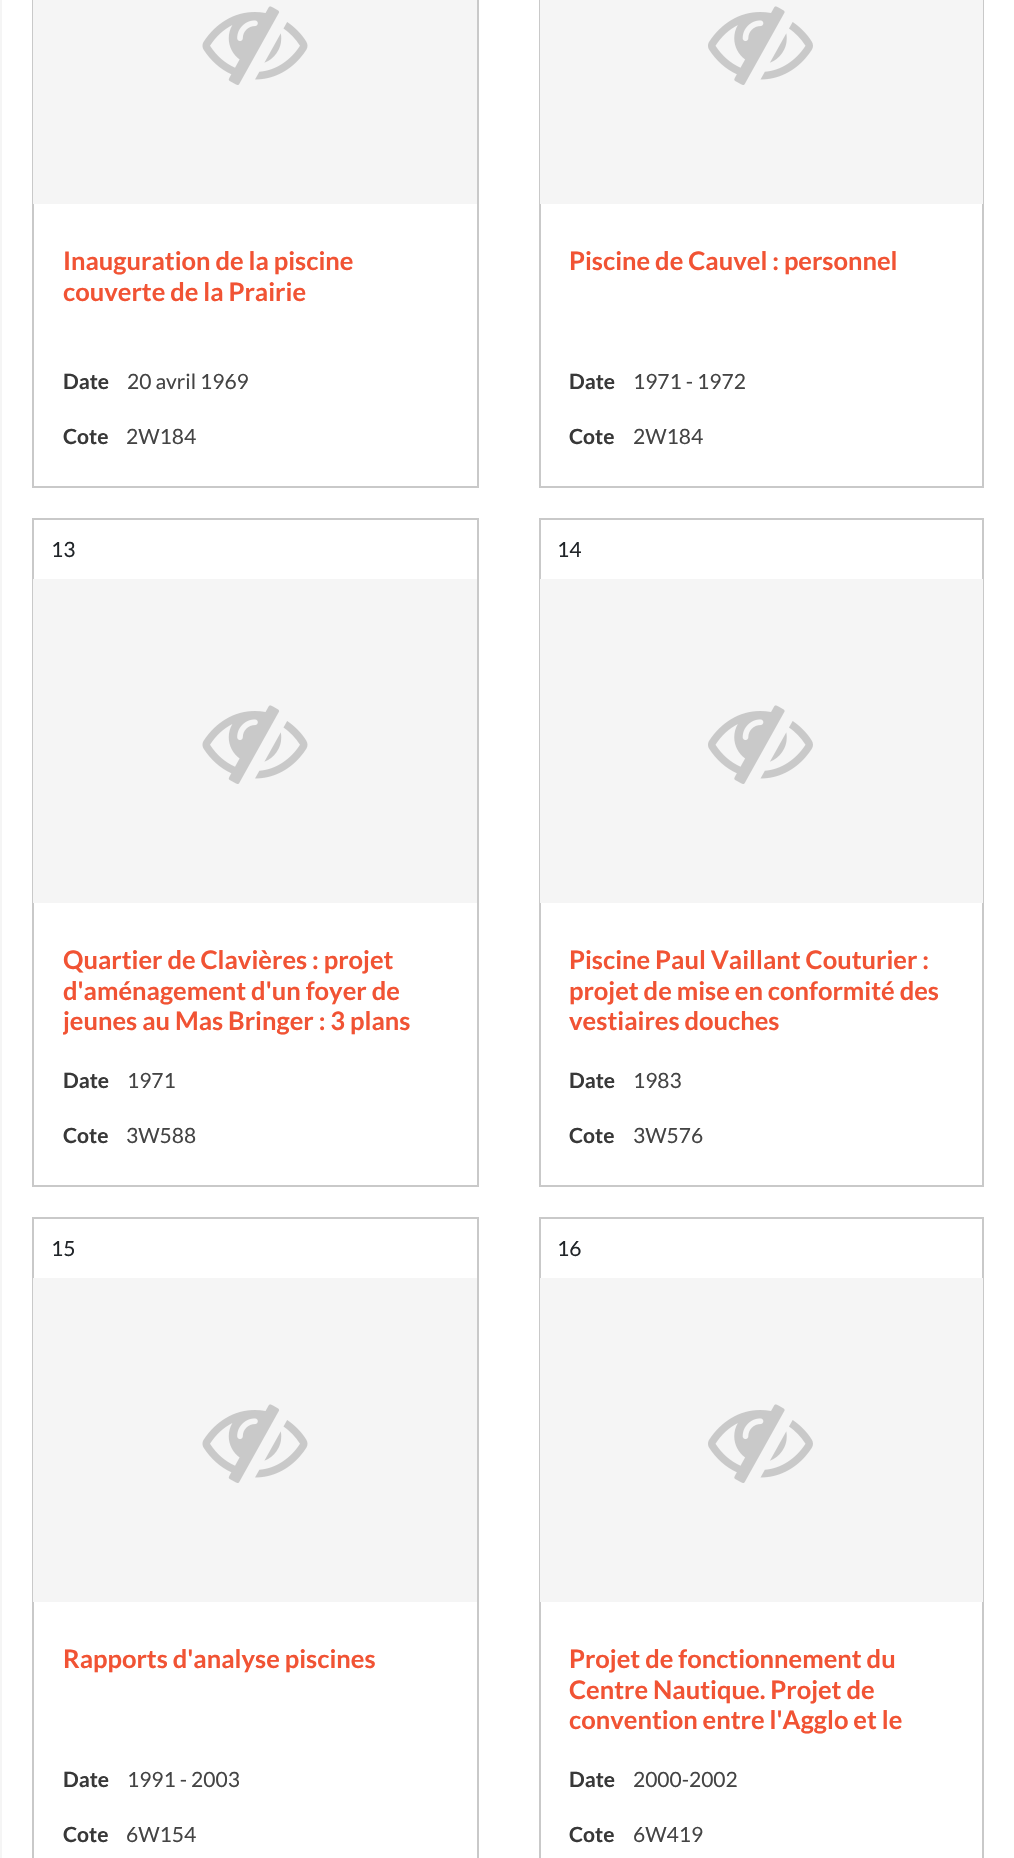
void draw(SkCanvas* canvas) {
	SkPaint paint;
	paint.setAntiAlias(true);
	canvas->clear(0xffffffff);
	paint.setColor(0xfff5f5f5);
	canvas->drawRect(SkRect::MakeXYWH(0, 0, 2, 1858), paint);
	paint.setStroke(true);
	paint.setStrokeWidth(2);
	paint.setColor(0xffc9c9c9);
	canvas->drawRect(SkRect::MakeXYWH(33, -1, 445, 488), paint);
	paint.setStroke(false);
	paint.setColor(0xfff5f5f5);
	canvas->drawRect(SkRect::MakeXYWH(33, 0, 444, 204), paint);
	canvas->drawImageRect(SkImages::DeferredFromEncodedData(SkData::MakeFromFileName("img1.png")), SkRect::MakeXYWH(202, 6, 106, 79), SkSamplingOptions());
	SkFont f1(fontMgr->matchFamilyStyle("Lato", SkFontStyle::Bold()), 25.5);
	f1.setSubpixel(true);
	paint.setColor(0xfff15334);
	canvas->drawString("Inauguration de la piscine", 63, 270, f1, paint);
	canvas->drawString("couverte de la Prairie", 63, 301, f1, paint);
	SkFont f2(fontMgr->matchFamilyStyle("Lato", SkFontStyle::Bold()), 21);
	f2.setSubpixel(true);
	paint.setColor(0xff383838);
	canvas->drawString("Date", 63, 389, f2, paint);
	SkFont f3(fontMgr->matchFamilyStyle("Lato", SkFontStyle::Normal()), 21);
	f3.setSubpixel(true);
	paint.setColor(0xff444444);
	canvas->drawString("20 avril 1969", 127, 389, f3, paint);
	paint.setColor(0xff383838);
	canvas->drawString("Cote", 63, 444, f2, paint);
	paint.setColor(0xff444444);
	canvas->drawString("2W184", 126, 444, f3, paint);
	paint.setStroke(true);
	paint.setColor(0xffc9c9c9);
	canvas->drawRect(SkRect::MakeXYWH(540, -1, 443, 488), paint);
	paint.setStroke(false);
	paint.setColor(0xfff5f5f5);
	canvas->drawRect(SkRect::MakeXYWH(540, 0, 443, 204), paint);
	canvas->drawImageRect(SkImages::DeferredFromEncodedData(SkData::MakeFromFileName("img2.png")), SkRect::MakeXYWH(708, 6, 105, 79), SkSamplingOptions());
	paint.setColor(0xfff15334);
	canvas->drawString("Piscine de Cauvel : personnel", 569, 270, f1, paint);
	paint.setColor(0xff383838);
	canvas->drawString("Date", 569, 389, f2, paint);
	paint.setColor(0xff444444);
	canvas->drawString("1971 - 1972", 633, 389, f3, paint);
	paint.setColor(0xff383838);
	canvas->drawString("Cote", 569, 444, f2, paint);
	paint.setColor(0xff444444);
	canvas->drawString("2W184", 633, 444, f3, paint);
	paint.setStroke(true);
	paint.setColor(0xffc9c9c9);
	canvas->drawRect(SkRect::MakeXYWH(33, 519, 445, 667), paint);
	paint.setStroke(false);
	paint.setColor(0xff212529);
	canvas->drawString("13", 51, 557, f3, paint);
	paint.setColor(0xfff5f5f5);
	canvas->drawRect(SkRect::MakeXYWH(33, 579, 444, 324), paint);
	canvas->drawImageRect(SkImages::DeferredFromEncodedData(SkData::MakeFromFileName("img3.png")), SkRect::MakeXYWH(202, 705, 106, 79), SkSamplingOptions());
	paint.setColor(0xfff15334);
	canvas->drawString("Quartier de Clavières : projet", 63, 969, f1, paint);
	canvas->drawString("d'aménagement d'un foyer de", 63, 1000, f1, paint);
	canvas->save();
	canvas->clipRect(SkRect::MakeXYWH(63, 945, 384, 93));
	canvas->drawString("jeunes au Mas Bringer : 3 plans", 63, 1030, f1, paint);
	canvas->restore();
	paint.setColor(0xff383838);
	canvas->drawString("Date", 63, 1088, f2, paint);
	paint.setColor(0xff444444);
	canvas->drawString("1971", 127, 1088, f3, paint);
	paint.setColor(0xff383838);
	canvas->drawString("Cote", 63, 1143, f2, paint);
	paint.setColor(0xff444444);
	canvas->drawString("3W588", 126, 1143, f3, paint);
	paint.setStroke(true);
	paint.setColor(0xffc9c9c9);
	canvas->drawRect(SkRect::MakeXYWH(540, 519, 443, 667), paint);
	paint.setStroke(false);
	paint.setColor(0xff212529);
	canvas->drawString("14", 557, 557, f3, paint);
	paint.setColor(0xfff5f5f5);
	canvas->drawRect(SkRect::MakeXYWH(540, 579, 443, 324), paint);
	canvas->drawImageRect(SkImages::DeferredFromEncodedData(SkData::MakeFromFileName("img4.png")), SkRect::MakeXYWH(708, 705, 105, 79), SkSamplingOptions());
	paint.setColor(0xfff15334);
	canvas->drawString("Piscine Paul Vaillant Couturier :", 569, 969, f1, paint);
	canvas->drawString("projet de mise en conformité des", 569, 1000, f1, paint);
	canvas->drawString("vestiaires douches", 569, 1030, f1, paint);
	paint.setColor(0xff383838);
	canvas->drawString("Date", 569, 1088, f2, paint);
	paint.setColor(0xff444444);
	canvas->drawString("1983", 633, 1088, f3, paint);
	paint.setColor(0xff383838);
	canvas->drawString("Cote", 569, 1143, f2, paint);
	paint.setColor(0xff444444);
	canvas->drawString("3W576", 633, 1143, f3, paint);
	paint.setStroke(true);
	paint.setColor(0xffc9c9c9);
	canvas->drawRect(SkRect::MakeXYWH(33, 1218, 445, 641), paint);
	paint.setStroke(false);
	paint.setColor(0xff212529);
	canvas->drawString("15", 51, 1256, f3, paint);
	paint.setColor(0xfff5f5f5);
	canvas->drawRect(SkRect::MakeXYWH(33, 1278, 444, 324), paint);
	canvas->drawImageRect(SkImages::DeferredFromEncodedData(SkData::MakeFromFileName("img3.png")), SkRect::MakeXYWH(202, 1404, 106, 79), SkSamplingOptions());
	paint.setColor(0xfff15334);
	canvas->drawString("Rapports d'analyse piscines", 63, 1668, f1, paint);
	paint.setColor(0xff383838);
	canvas->drawString("Date", 63, 1787, f2, paint);
	paint.setColor(0xff444444);
	canvas->drawString("1991 - 2003", 127, 1787, f3, paint);
	paint.setColor(0xff383838);
	canvas->drawString("Cote", 63, 1842, f2, paint);
	paint.setColor(0xff444444);
	canvas->drawString("6W154", 126, 1842, f3, paint);
	paint.setStroke(true);
	paint.setColor(0xffc9c9c9);
	canvas->drawRect(SkRect::MakeXYWH(540, 1218, 443, 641), paint);
	paint.setStroke(false);
	paint.setColor(0xff212529);
	canvas->drawString("16", 557, 1256, f3, paint);
	paint.setColor(0xfff5f5f5);
	canvas->drawRect(SkRect::MakeXYWH(540, 1278, 443, 324), paint);
	canvas->drawImageRect(SkImages::DeferredFromEncodedData(SkData::MakeFromFileName("img4.png")), SkRect::MakeXYWH(708, 1404, 105, 79), SkSamplingOptions());
	paint.setColor(0xfff15334);
	canvas->drawString("Projet de fonctionnement du", 569, 1668, f1, paint);
	canvas->drawString("Centre Nautique. Projet de", 569, 1699, f1, paint);
	canvas->drawString("convention entre l'Agglo et le", 569, 1729, f1, paint);
	paint.setColor(0xff383838);
	canvas->drawString("Date", 569, 1787, f2, paint);
	paint.setColor(0xff444444);
	canvas->drawString("2000-2002", 633, 1787, f3, paint);
	paint.setColor(0xff383838);
	canvas->drawString("Cote", 569, 1842, f2, paint);
	paint.setColor(0xff444444);
	canvas->drawString("6W419", 633, 1842, f3, paint);
}
